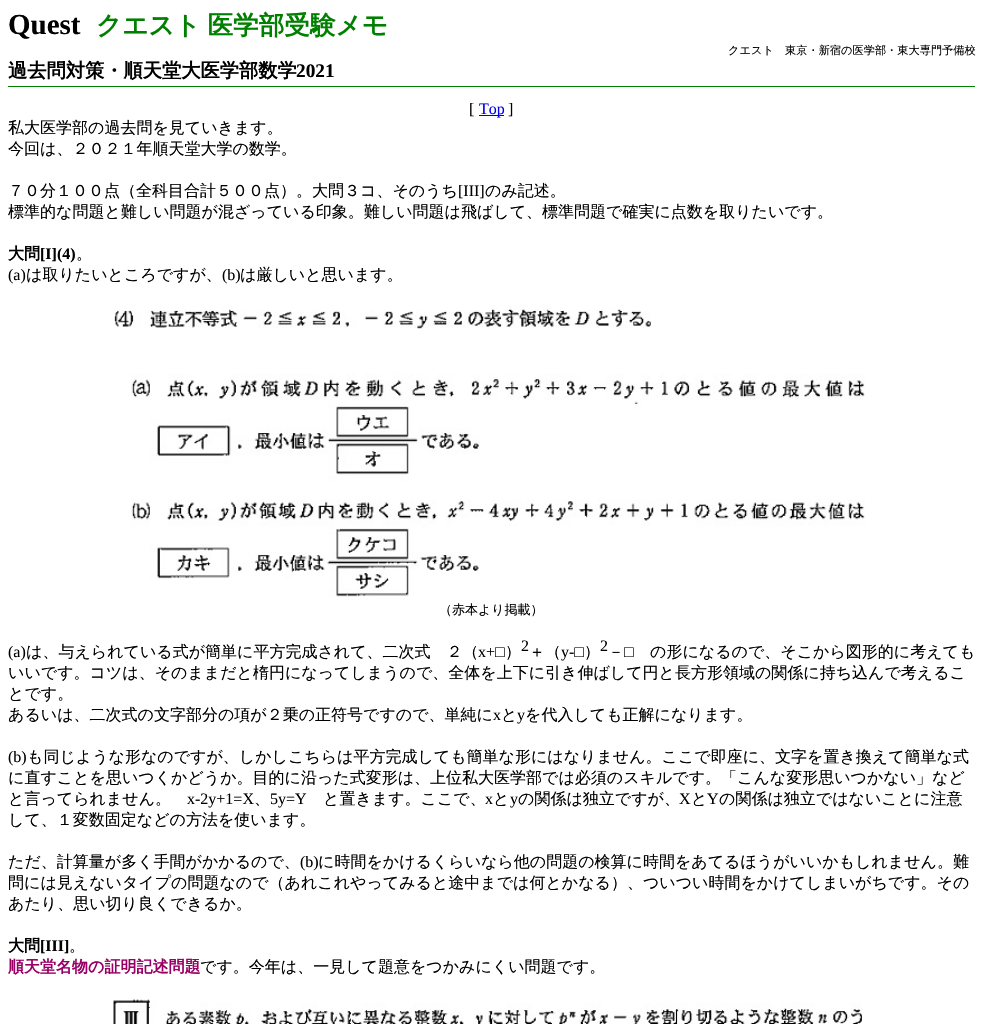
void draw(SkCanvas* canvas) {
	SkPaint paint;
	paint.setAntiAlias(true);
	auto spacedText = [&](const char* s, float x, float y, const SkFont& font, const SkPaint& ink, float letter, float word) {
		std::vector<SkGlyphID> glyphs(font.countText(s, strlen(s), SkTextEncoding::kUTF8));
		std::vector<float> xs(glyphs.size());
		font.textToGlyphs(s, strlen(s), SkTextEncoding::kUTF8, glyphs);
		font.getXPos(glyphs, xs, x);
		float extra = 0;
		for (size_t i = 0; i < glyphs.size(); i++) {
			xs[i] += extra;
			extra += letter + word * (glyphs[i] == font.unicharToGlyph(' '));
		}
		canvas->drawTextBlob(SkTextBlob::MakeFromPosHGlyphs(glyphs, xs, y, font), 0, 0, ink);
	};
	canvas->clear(0xffffffff);
	SkFont f1(fontMgr->matchFamilyStyle("Liberation Serif", SkFontStyle::Bold()), 29);
	f1.setSubpixel(true);
	paint.setColor(0xff000000);
	canvas->drawString("Quest", 8, 34, f1, paint);
	SkFont f2(fontMgr->matchFamilyStyle("WenQuanYi Zen Hei", SkFontStyle::Bold()), 25.6);
	f2.setSubpixel(true);
	paint.setColor(0xff008000);
	spacedText("クエスト 医学部受験メモ", 96, 34, f2, paint, 0, -1);
	SkFont f3(fontMgr->matchFamilyStyle("WenQuanYi Zen Hei", SkFontStyle(500, SkFontStyle::kNormal_Width, SkFontStyle::kUpright_Slant)), 11.2);
	f3.setSubpixel(true);
	paint.setColor(0xff000000);
	canvas->drawString("クエスト　東京・新宿の医学部・東大専門予備校", 728, 54, f3, paint);
	paint.setColor(0xff008000);
	canvas->drawRect(SkRect::MakeXYWH(8, 86, 967, 1), paint);
	SkFont f4(fontMgr->matchFamilyStyle("WenQuanYi Zen Hei", SkFontStyle::Bold()), 19.25);
	f4.setSubpixel(true);
	paint.setColor(0xff000000);
	canvas->drawString("過去問対策・順天堂大医学部数学", 8, 77, f4, paint);
	SkFont f5(fontMgr->matchFamilyStyle("Liberation Serif", SkFontStyle::Bold()), 19.25);
	f5.setSubpixel(true);
	canvas->drawString("2021", 296, 77, f5, paint);
	SkFont f6(fontMgr->matchFamilyStyle("Liberation Serif", SkFontStyle::Normal()), 16);
	f6.setSubpixel(true);
	canvas->drawString("[", 469, 114, f6, paint);
	paint.setColor(0xff0000ee);
	canvas->drawRect(SkRect::MakeXYWH(479, 115, 25, 1), paint);
	canvas->drawString("Top", 479, 114, f6, paint);
	paint.setColor(0xff000000);
	canvas->drawString("]", 508, 114, f6, paint);
	SkFont f7(fontMgr->matchFamilyStyle("WenQuanYi Zen Hei", SkFontStyle(500, SkFontStyle::kNormal_Width, SkFontStyle::kUpright_Slant)), 16);
	f7.setSubpixel(true);
	canvas->drawString("私大医学部の過去問を見ていきます。", 8, 133, f7, paint);
	canvas->drawString("今回は、２０２１年順天堂大学の数学。", 8, 154, f7, paint);
	canvas->drawString("７０分１００点（全科目合計５００点）。大問３コ、そのうち", 8, 196, f7, paint);
	canvas->drawString("[III]", 458, 196, f6, paint);
	canvas->drawString("のみ記述。", 485, 196, f7, paint);
	canvas->drawString("標準的な問題と難しい問題が混ざっている印象。難しい問題は飛ばして、標準問題で確実に点数を取りたいです。", 8, 217, f7, paint);
	SkFont f8(fontMgr->matchFamilyStyle("WenQuanYi Zen Hei", SkFontStyle::Bold()), 16);
	f8.setSubpixel(true);
	canvas->drawString("大問", 8, 259, f8, paint);
	SkFont f9(fontMgr->matchFamilyStyle("Liberation Serif", SkFontStyle::Bold()), 16);
	f9.setSubpixel(true);
	canvas->drawString("[I](4)", 40, 259, f9, paint);
	canvas->drawString("。", 76, 259, f7, paint);
	canvas->drawString("(a)", 8, 280, f6, paint);
	canvas->drawString("は取りたいところですが、", 26, 280, f7, paint);
	canvas->drawString("(b)", 222, 280, f6, paint);
	canvas->drawString("は厳しいと思います。", 240, 280, f7, paint);
	canvas->drawImageRect(SkImages::DeferredFromEncodedData(SkData::MakeFromFileName("img1.png")), SkRect::MakeXYWH(114, 305, 751, 292), SkSamplingOptions());
	SkFont f10(fontMgr->matchFamilyStyle("WenQuanYi Zen Hei", SkFontStyle(500, SkFontStyle::kNormal_Width, SkFontStyle::kUpright_Slant)), 13);
	f10.setSubpixel(true);
	canvas->drawString("（赤本より掲載）", 439, 614, f10, paint);
	canvas->drawString("(a)", 8, 657, f6, paint);
	canvas->drawString("は、与えられている式が簡単に平方完成されて、二次式　２（", 26, 657, f7, paint);
	canvas->drawString("x+□", 478, 657, f6, paint);
	canvas->drawString("）", 505, 657, f7, paint);
	canvas->drawString("2", 521, 651, f6, paint);
	canvas->drawString("＋（", 529, 657, f7, paint);
	canvas->drawString("y-□", 561, 657, f6, paint);
	canvas->drawString("）", 584, 657, f7, paint);
	canvas->drawString("2", 600, 651, f6, paint);
	canvas->drawString("－", 608, 657, f7, paint);
	canvas->drawString("□", 624, 657, f6, paint);
	canvas->drawString("の形になるので、そこから図形的に考えても", 650, 657, f7, paint);
	canvas->drawString("いいです。コツは、そのままだと楕円になってしまうので、全体を上下に引き伸ばして円と長方形領域の関係に持ち込んで考えるこ", 8, 678, f7, paint);
	canvas->drawString("とです。", 8, 699, f7, paint);
	canvas->drawString("あるいは、二次式の文字部分の項が２乗の正符号ですので、単純に", 8, 720, f7, paint);
	canvas->drawString("x", 493, 720, f6, paint);
	canvas->drawString("と", 501, 720, f7, paint);
	canvas->drawString("y", 517, 720, f6, paint);
	canvas->drawString("を代入しても正解になります。", 525, 720, f7, paint);
	canvas->drawString("(b)", 8, 762, f6, paint);
	canvas->drawString("も同じような形なのですが、しかしこちらは平方完成しても簡単な形にはなりません。ここで即座に、文字を置き換えて簡単な式", 27, 762, f7, paint);
	canvas->drawString("に直すことを思いつくかどうか。目的に沿った式変形は、上位私大医学部では必須のスキルです。「こんな変形思いつかない」など", 8, 783, f7, paint);
	canvas->drawString("と言ってられません。", 8, 804, f7, paint);
	canvas->drawString("x-2y+1=X", 187, 804, f6, paint);
	canvas->drawString("、", 254, 804, f7, paint);
	canvas->drawString("5y=Y", 270, 804, f6, paint);
	canvas->drawString("と置きます。ここで、", 323, 804, f7, paint);
	canvas->drawString("x", 485, 804, f6, paint);
	canvas->drawString("と", 493, 804, f7, paint);
	canvas->drawString("y", 510, 804, f6, paint);
	canvas->drawString("の関係は独立ですが、", 518, 804, f7, paint);
	canvas->drawString("X", 679, 804, f6, paint);
	canvas->drawString("と", 691, 804, f7, paint);
	canvas->drawString("Y", 707, 804, f6, paint);
	canvas->drawString("の関係は独立ではないことに注意", 719, 804, f7, paint);
	canvas->drawString("して、１変数固定などの方法を使います。", 8, 825, f7, paint);
	canvas->drawString("ただ、計算量が多く手間がかかるので、", 8, 867, f7, paint);
	canvas->drawString("(b)", 300, 867, f6, paint);
	canvas->drawString("に時間をかけるくらいなら他の問題の検算に時間をあてるほうがいいかもしれません。難", 318, 867, f7, paint);
	canvas->drawString("問には見えないタイプの問題なので（あれこれやってみると途中までは何とかなる）、ついつい時間をかけてしまいがちです。その", 8, 888, f7, paint);
	canvas->drawString("あたり、思い切り良くできるか。", 8, 909, f7, paint);
	canvas->drawString("大問", 8, 951, f8, paint);
	canvas->drawString("[III]", 40, 951, f9, paint);
	canvas->drawString("。", 69, 951, f7, paint);
	paint.setColor(0xff990066);
	canvas->drawString("順天堂名物の証明記述問題", 8, 972, f8, paint);
	paint.setColor(0xff000000);
	canvas->drawString("です。今年は、一見して題意をつかみにくい問題です。", 200, 972, f7, paint);
	canvas->drawImageRect(SkImages::DeferredFromEncodedData(SkData::MakeFromFileName("img2.png")), SkRect::MakeXYWH(113, 999, 749, 25), SkSamplingOptions());
}
